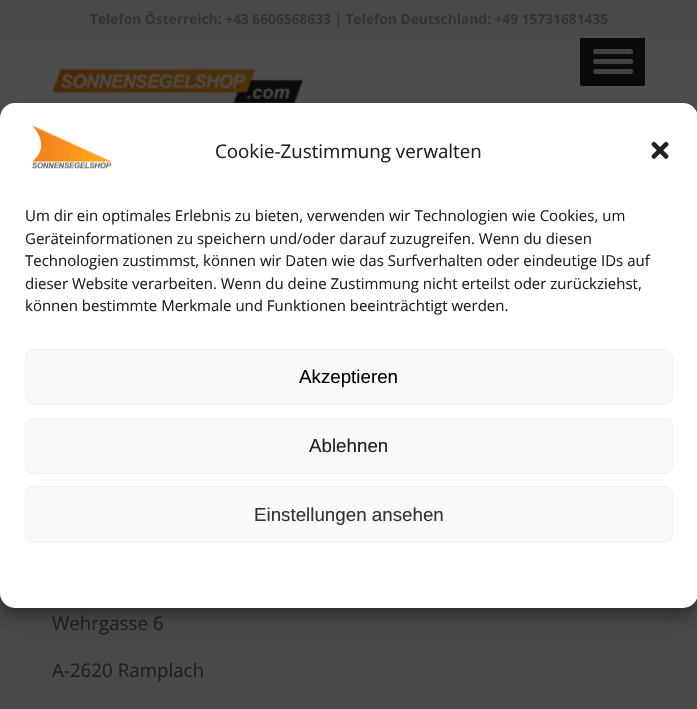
void draw(SkCanvas* canvas) {
	SkPaint paint;
	paint.setAntiAlias(true);
	canvas->clear(0xff4a4a4a);
	paint.setColor(0xff4d4d4d);
	canvas->drawRect(SkRect::MakeXYWH(0, 38, 697, 80), paint);
	paint.setColor(0xff0a0a0a);
	canvas->drawRoundRect(SkRect::MakeXYWH(580, 36, 65, 50), 2.5, 2.5, paint);
	paint.setColor(0xff4a4a4a);
	canvas->drawRect(SkRect::MakeXYWH(580, 36, 65, 2), paint);
	SkFont f1(fontMgr->matchFamilyStyle("Open Sans", SkFontStyle::Bold()), 13.75);
	f1.setSubpixel(true);
	paint.setColor(0xff333333);
	canvas->drawString("Telefon Österreich: +43 6606568633 | Telefon Deutschland: +49 15731681435", 90, 24, f1, paint);
	canvas->drawImageRect(SkImages::DeferredFromEncodedData(SkData::MakeFromFileName("img1.png")), SkRect::MakeXYWH(52, 68, 251, 35), SkSamplingOptions());
	paint.setColor(0xff424242);
	canvas->drawRoundRect(SkRect::MakeXYWH(593, 49, 40, 5), 2.5, 2.5, paint);
	canvas->drawRoundRect(SkRect::MakeXYWH(593, 59, 40, 5), 2.5, 2.5, paint);
	canvas->drawRoundRect(SkRect::MakeXYWH(593, 69, 40, 5), 2.5, 2.5, paint);
	SkFont f2(fontMgr->matchFamilyStyle("Open Sans", SkFontStyle::Normal()), 18.75);
	f2.setSubpixel(true);
	paint.setColor(0xff1f1f1f);
	canvas->drawString("Wehrgasse 6", 52, 630, f2, paint);
	canvas->drawString("A-2620 Ramplach", 52, 677, f2, paint);
	paint.setColor(0x3b000000);
	paint.setMaskFilter(SkMaskFilter::MakeBlur(kNormal_SkBlurStyle, 4));
	canvas->drawRoundRect(SkRect::MakeXYWH(0, 110, 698, 505), 15, 15, paint);
	paint.setMaskFilter(nullptr);
	paint.setColor(0x30000000);
	paint.setMaskFilter(SkMaskFilter::MakeBlur(kNormal_SkBlurStyle, 12.5));
	canvas->drawRoundRect(SkRect::MakeXYWH(0, 115, 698, 505), 15, 15, paint);
	paint.setMaskFilter(nullptr);
	paint.setColor(0xffffffff);
	canvas->drawRoundRect(SkRect::MakeXYWH(0, 103, 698, 505), 15, 15, paint);
	canvas->drawImageRect(SkImages::DeferredFromEncodedData(SkData::MakeFromFileName("img2.png")), SkRect::MakeXYWH(32, 125, 80, 44), SkSamplingOptions());
	paint.setColor(0xff1f1f1f);
	canvas->drawString("Cookie-Zustimmung verwalten", 215, 158, f2, paint);
	canvas->drawImageRect(SkImages::DeferredFromEncodedData(SkData::MakeFromFileName("img3.png")), SkRect::MakeXYWH(651, 141, 18, 18), SkSamplingOptions());
	SkFont f3(fontMgr->matchFamilyStyle("Open Sans", SkFontStyle::Normal()), 15);
	f3.setSubpixel(true);
	canvas->drawString("Um dir ein optimales Erlebnis zu bieten, verwenden wir Technologien wie Cookies, um", 25, 221, f3, paint);
	canvas->drawString("Geräteinformationen zu speichern und/oder darauf zuzugreifen. Wenn du diesen", 25, 244, f3, paint);
	canvas->drawString("Technologien zustimmst, können wir Daten wie das Surfverhalten oder eindeutige IDs auf", 25, 266, f3, paint);
	canvas->drawString("dieser Website verarbeiten. Wenn du deine Zustimmung nicht erteilst oder zurückziehst,", 25, 289, f3, paint);
	canvas->drawString("können bestimmte Merkmale und Funktionen beeinträchtigt werden.", 25, 311, f3, paint);
	paint.setColor(0xfff9f9f9);
	canvas->drawRoundRect(SkRect::MakeXYWH(25.5, 349.5, 647, 55), 7.5, 7.5, paint);
	paint.setStroke(true);
	paint.setStrokeWidth(1);
	paint.setColor(0xfff2f2f2);
	canvas->drawRoundRect(SkRect::MakeXYWH(25.5, 349.5, 647, 55), 7.5, 7.5, paint);
	SkFont f4(fontMgr->matchFamilyStyle("Liberation Sans", SkFontStyle::Normal()), 18.75);
	f4.setSubpixel(true);
	paint.setStroke(false);
	paint.setColor(0xff000000);
	canvas->drawString("Akzeptieren", 299, 383, f4, paint);
	paint.setColor(0xfff9f9f9);
	canvas->drawRoundRect(SkRect::MakeXYWH(25.5, 418.5, 647, 55), 7.5, 7.5, paint);
	paint.setStroke(true);
	paint.setColor(0xfff2f2f2);
	canvas->drawRoundRect(SkRect::MakeXYWH(25.5, 418.5, 647, 55), 7.5, 7.5, paint);
	paint.setStroke(false);
	paint.setColor(0xff1f1f1f);
	canvas->drawString("Ablehnen", 309, 452, f4, paint);
	paint.setColor(0xfff9f9f9);
	canvas->drawRoundRect(SkRect::MakeXYWH(25.5, 486.5, 647, 56), 7.5, 7.5, paint);
	paint.setStroke(true);
	paint.setColor(0xfff2f2f2);
	canvas->drawRoundRect(SkRect::MakeXYWH(25.5, 486.5, 647, 56), 7.5, 7.5, paint);
	paint.setStroke(false);
	paint.setColor(0xff333333);
	canvas->drawString("Einstellungen ansehen", 254, 521, f4, paint);
}
